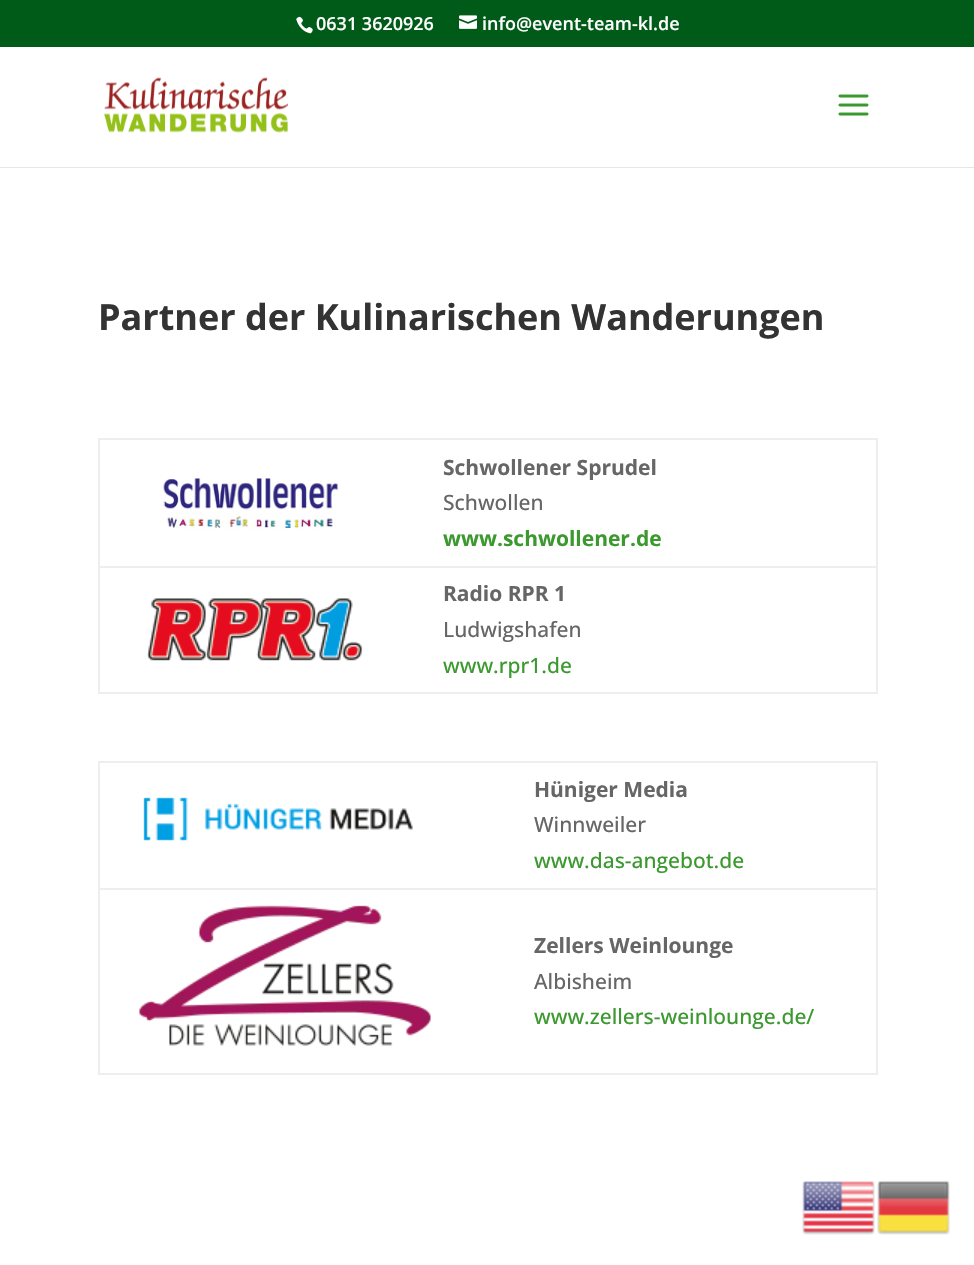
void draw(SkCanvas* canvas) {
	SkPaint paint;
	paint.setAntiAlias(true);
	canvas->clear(0xffffffff);
	paint.setColor(0xff005b18);
	canvas->drawRect(SkRect::MakeXYWH(0, 0, 974, 47), paint);
	canvas->drawImageRect(SkImages::DeferredFromEncodedData(SkData::MakeFromFileName("img1.png")), SkRect::MakeXYWH(296, 16, 17, 18), SkSamplingOptions());
	SkFont f1(fontMgr->matchFamilyStyle("Open Sans", SkFontStyle(600, SkFontStyle::kNormal_Width, SkFontStyle::kUpright_Slant)), 18);
	f1.setSubpixel(true);
	paint.setColor(0xffffffff);
	canvas->drawString("0631 3620926", 316, 30, f1, paint);
	canvas->drawImageRect(SkImages::DeferredFromEncodedData(SkData::MakeFromFileName("img2.png")), SkRect::MakeXYWH(459, 15, 18, 14), SkSamplingOptions());
	canvas->drawString("info@event-team-kl.de", 482, 30, f1, paint);
	paint.setColor(0xffe6e6e6);
	canvas->drawRect(SkRect::MakeXYWH(0, 167, 974, 1), paint);
	canvas->drawImageRect(SkImages::DeferredFromEncodedData(SkData::MakeFromFileName("img3.png")), SkRect::MakeXYWH(104, 77, 184, 56), SkSamplingOptions());
	canvas->drawImageRect(SkImages::DeferredFromEncodedData(SkData::MakeFromFileName("img4.png")), SkRect::MakeXYWH(838, 94, 31, 22), SkSamplingOptions());
	SkFont f2(fontMgr->matchFamilyStyle("Open Sans", SkFontStyle::Bold()), 36);
	f2.setSubpixel(true);
	paint.setColor(0xff333333);
	canvas->drawString("Partner der Kulinarischen Wanderungen", 98, 330, f2, paint);
	paint.setColor(0xffeeeeee);
	canvas->drawRect(SkRect::MakeXYWH(98, 438, 780, 2), paint);
	canvas->drawRect(SkRect::MakeXYWH(876, 438, 2, 255), paint);
	canvas->drawRect(SkRect::MakeXYWH(98, 692, 780, 2), paint);
	canvas->drawRect(SkRect::MakeXYWH(98, 438, 2, 255), paint);
	canvas->drawImageRect(SkImages::DeferredFromEncodedData(SkData::MakeFromFileName("img5.png")), SkRect::MakeXYWH(163, 478, 175, 52), SkSamplingOptions());
	SkFont f3(fontMgr->matchFamilyStyle("Open Sans", SkFontStyle::Bold()), 21);
	f3.setSubpixel(true);
	paint.setColor(0xff666666);
	canvas->drawString("Schwollener Sprudel", 443, 475, f3, paint);
	SkFont f4(fontMgr->matchFamilyStyle("Open Sans", SkFontStyle(500, SkFontStyle::kNormal_Width, SkFontStyle::kUpright_Slant)), 21);
	f4.setSubpixel(true);
	canvas->drawString("Schwollen", 443, 510, f4, paint);
	paint.setColor(0xff3b992f);
	canvas->drawString("www.schwollener.de", 443, 546, f3, paint);
	canvas->drawImageRect(SkImages::DeferredFromEncodedData(SkData::MakeFromFileName("img6.png")), SkRect::MakeXYWH(147, 598, 216, 63), SkSamplingOptions());
	paint.setColor(0xffeeeeee);
	canvas->drawRect(SkRect::MakeXYWH(98, 566, 780, 2), paint);
	paint.setColor(0xff666666);
	canvas->drawString("Radio RPR 1", 443, 601, f3, paint);
	canvas->drawString("Ludwigshafen", 443, 637, f4, paint);
	paint.setColor(0xff3b992f);
	canvas->drawString("www.rpr1.de", 443, 673, f4, paint);
	paint.setColor(0xffeeeeee);
	canvas->drawRect(SkRect::MakeXYWH(98, 761, 780, 2), paint);
	canvas->drawRect(SkRect::MakeXYWH(876, 761, 2, 313), paint);
	canvas->drawRect(SkRect::MakeXYWH(98, 1073, 780, 2), paint);
	canvas->drawRect(SkRect::MakeXYWH(98, 761, 2, 313), paint);
	canvas->drawImageRect(SkImages::DeferredFromEncodedData(SkData::MakeFromFileName("img7.png")), SkRect::MakeXYWH(143, 797, 270, 44), SkSamplingOptions());
	paint.setColor(0xff666666);
	canvas->drawString("Hüniger Media", 534, 797, f3, paint);
	canvas->drawString("Winnweiler", 534, 832, f4, paint);
	paint.setColor(0xff3b992f);
	canvas->drawString("www.das-angebot.de", 534, 868, f4, paint);
	canvas->drawImageRect(SkImages::DeferredFromEncodedData(SkData::MakeFromFileName("img8.png")), SkRect::MakeXYWH(139, 905, 292, 141), SkSamplingOptions());
	paint.setColor(0xffeeeeee);
	canvas->drawRect(SkRect::MakeXYWH(98, 888, 780, 2), paint);
	paint.setColor(0xff666666);
	canvas->drawString("Zellers Weinlounge", 534, 953, f3, paint);
	canvas->drawString("Albisheim", 534, 989, f4, paint);
	paint.setColor(0xff3b992f);
	canvas->drawString("www.zellers-weinlounge.de/", 534, 1024, f4, paint);
	canvas->drawImageRect(SkImages::DeferredFromEncodedData(SkData::MakeFromFileName("img9.png")), SkRect::MakeXYWH(802, 1181, 73, 54), SkSamplingOptions());
	canvas->drawImageRect(SkImages::DeferredFromEncodedData(SkData::MakeFromFileName("img10.png")), SkRect::MakeXYWH(877, 1180, 73, 55), SkSamplingOptions());
}
